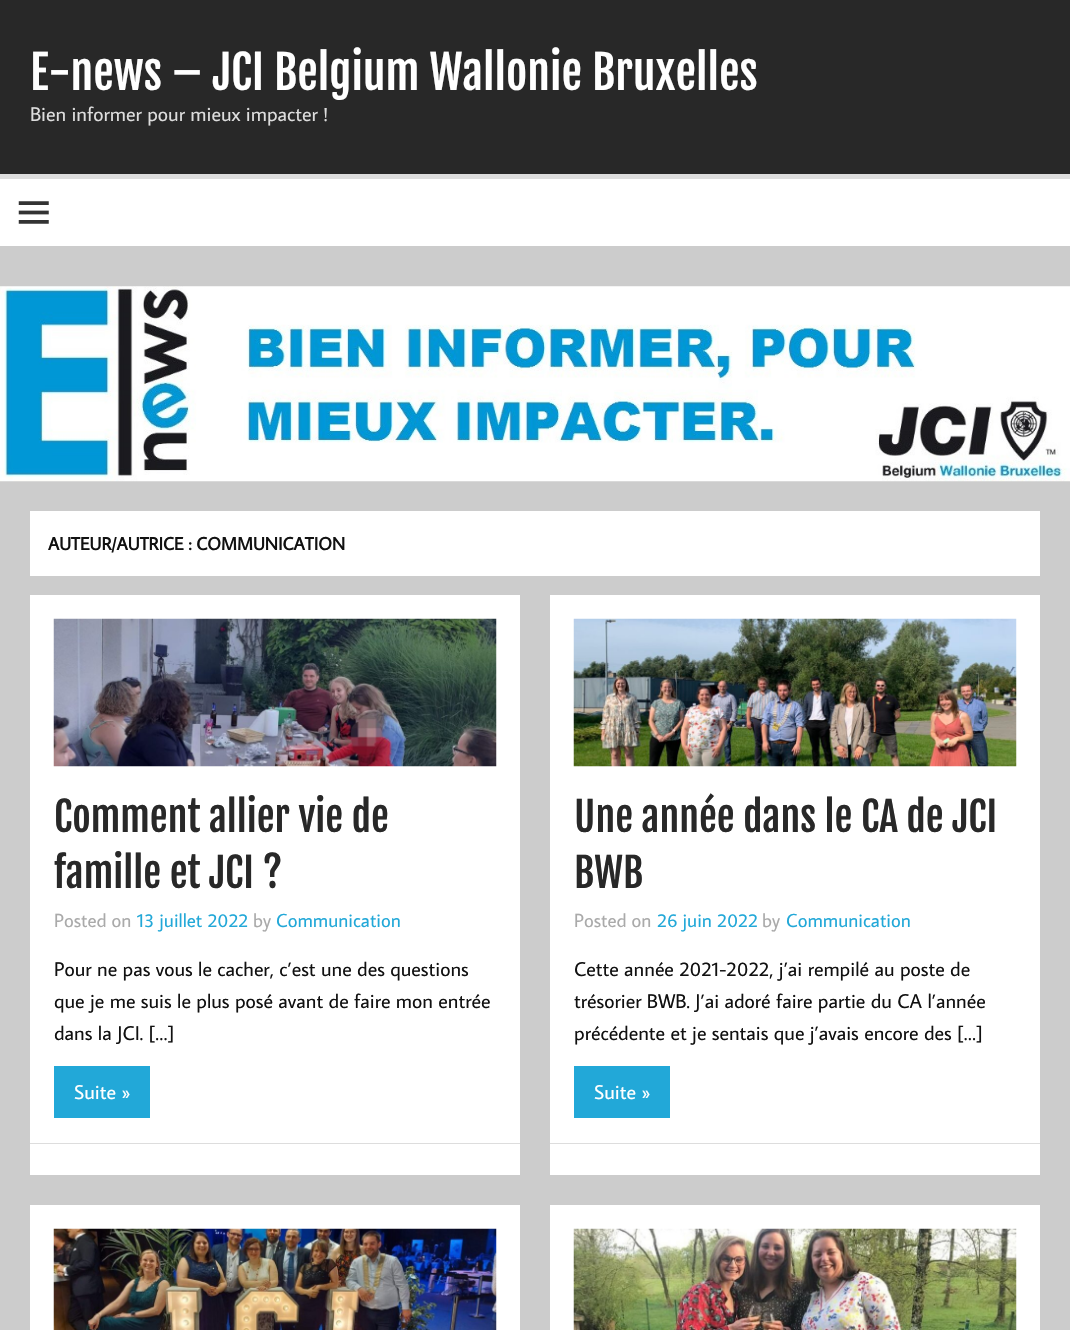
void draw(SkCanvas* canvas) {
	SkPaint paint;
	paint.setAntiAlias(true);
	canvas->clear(0xffcccccc);
	paint.setColor(0xff282828);
	canvas->drawRect(SkRect::MakeXYWH(0, 0, 1070, 174), paint);
	SkFont f1(fontMgr->matchFamilyStyle("Fjalla One", SkFontStyle::Normal()), 46);
	f1.setSubpixel(true);
	paint.setColor(0xffffffff);
	canvas->drawString("E-news – JCI Belgium Wallonie Bruxelles", 30, 90, f1, paint);
	SkFont f2(fontMgr->matchFamilyStyle("Average Sans", SkFontStyle::Normal()), 20);
	f2.setSubpixel(true);
	paint.setColor(0xffdddddd);
	canvas->drawString("Bien informer pour mieux impacter !", 30, 121, f2, paint);
	paint.setColor(0xffffffff);
	canvas->drawRect(SkRect::MakeXYWH(0, 179, 1070, 67), paint);
	paint.setColor(0xffdddddd);
	canvas->drawRect(SkRect::MakeXYWH(0, 174, 1070, 5), paint);
	canvas->drawImageRect(SkImages::DeferredFromEncodedData(SkData::MakeFromFileName("img1.png")), SkRect::MakeXYWH(18, 201, 31, 23), SkSamplingOptions());
	canvas->drawImageRect(SkImages::DeferredFromEncodedData(SkData::MakeFromFileName("img2.png")), SkRect::MakeXYWH(0, 286, 1070, 196), SkSamplingOptions());
	paint.setColor(0xffffffff);
	canvas->drawRect(SkRect::MakeXYWH(30, 511, 1010, 65), paint);
	SkFont f3(fontMgr->matchFamilyStyle("Average Sans", SkFontStyle::Bold()), 18);
	f3.setSubpixel(true);
	paint.setColor(0xff111111);
	canvas->drawString("AUTEUR/AUTRICE : COMMUNICATION", 48, 550, f3, paint);
	paint.setColor(0xffffffff);
	canvas->drawRect(SkRect::MakeXYWH(30, 595, 490, 580), paint);
	canvas->drawImageRect(SkImages::DeferredFromEncodedData(SkData::MakeFromFileName("img3.png")), SkRect::MakeXYWH(53, 618, 444, 149), SkSamplingOptions());
	SkFont f4(fontMgr->matchFamilyStyle("Fjalla One", SkFontStyle::Normal()), 40);
	f4.setSubpixel(true);
	paint.setColor(0xff282828);
	canvas->drawString("Comment allier vie de", 54, 832, f4, paint);
	canvas->drawString("famille et JCI ?", 54, 888, f4, paint);
	SkFont f5(fontMgr->matchFamilyStyle("Average Sans", SkFontStyle::Normal()), 19);
	f5.setSubpixel(true);
	paint.setColor(0xffaaaaaa);
	canvas->drawString("Posted on", 54, 927, f5, paint);
	paint.setColor(0xff22a8d8);
	canvas->drawString("13 juillet 2022", 137, 927, f5, paint);
	paint.setColor(0xffaaaaaa);
	canvas->drawString("by", 253, 927, f5, paint);
	paint.setColor(0xff22a8d8);
	canvas->drawString("Communication", 276, 927, f5, paint);
	paint.setColor(0xff111111);
	canvas->drawString("Pour ne pas vous le cacher, c’est une des questions", 54, 976, f2, paint);
	canvas->drawString("que je me suis le plus posé avant de faire mon entrée", 54, 1008, f2, paint);
	canvas->drawString("dans la JCI. […]", 54, 1040, f2, paint);
	paint.setColor(0xff22a8d8);
	canvas->drawRect(SkRect::MakeXYWH(54, 1066, 96, 52), paint);
	paint.setColor(0xffffffff);
	canvas->drawString("Suite »", 74, 1099, f2, paint);
	paint.setColor(0xffdddddd);
	canvas->drawRect(SkRect::MakeXYWH(30, 1143, 490, 1), paint);
	paint.setColor(0xffffffff);
	canvas->drawRect(SkRect::MakeXYWH(550, 595, 490, 580), paint);
	canvas->drawImageRect(SkImages::DeferredFromEncodedData(SkData::MakeFromFileName("img4.png")), SkRect::MakeXYWH(573, 618, 444, 149), SkSamplingOptions());
	paint.setColor(0xff282828);
	canvas->drawString("Une année dans le CA de JCI", 574, 832, f4, paint);
	canvas->drawString("BWB", 574, 888, f4, paint);
	paint.setColor(0xffaaaaaa);
	canvas->drawString("Posted on", 574, 927, f5, paint);
	paint.setColor(0xff22a8d8);
	canvas->drawString("26 juin 2022", 657, 927, f5, paint);
	paint.setColor(0xffaaaaaa);
	canvas->drawString("by", 762, 927, f5, paint);
	paint.setColor(0xff22a8d8);
	canvas->drawString("Communication", 786, 927, f5, paint);
	paint.setColor(0xff111111);
	canvas->drawString("Cette année 2021-2022, j’ai rempilé au poste de", 574, 976, f2, paint);
	canvas->drawString("trésorier BWB. J’ai adoré faire partie du CA l’année", 574, 1008, f2, paint);
	canvas->drawString("précédente et je sentais que j’avais encore des […]", 574, 1040, f2, paint);
	paint.setColor(0xff22a8d8);
	canvas->drawRect(SkRect::MakeXYWH(574, 1066, 96, 52), paint);
	paint.setColor(0xffffffff);
	canvas->drawString("Suite »", 594, 1099, f2, paint);
	paint.setColor(0xffdddddd);
	canvas->drawRect(SkRect::MakeXYWH(550, 1143, 490, 1), paint);
	paint.setColor(0xffffffff);
	canvas->drawRect(SkRect::MakeXYWH(30, 1205, 490, 125), paint);
	canvas->drawImageRect(SkImages::DeferredFromEncodedData(SkData::MakeFromFileName("img5.png")), SkRect::MakeXYWH(53, 1228, 444, 102), SkSamplingOptions());
	canvas->drawRect(SkRect::MakeXYWH(550, 1205, 490, 125), paint);
	canvas->drawImageRect(SkImages::DeferredFromEncodedData(SkData::MakeFromFileName("img6.png")), SkRect::MakeXYWH(573, 1228, 444, 102), SkSamplingOptions());
}
